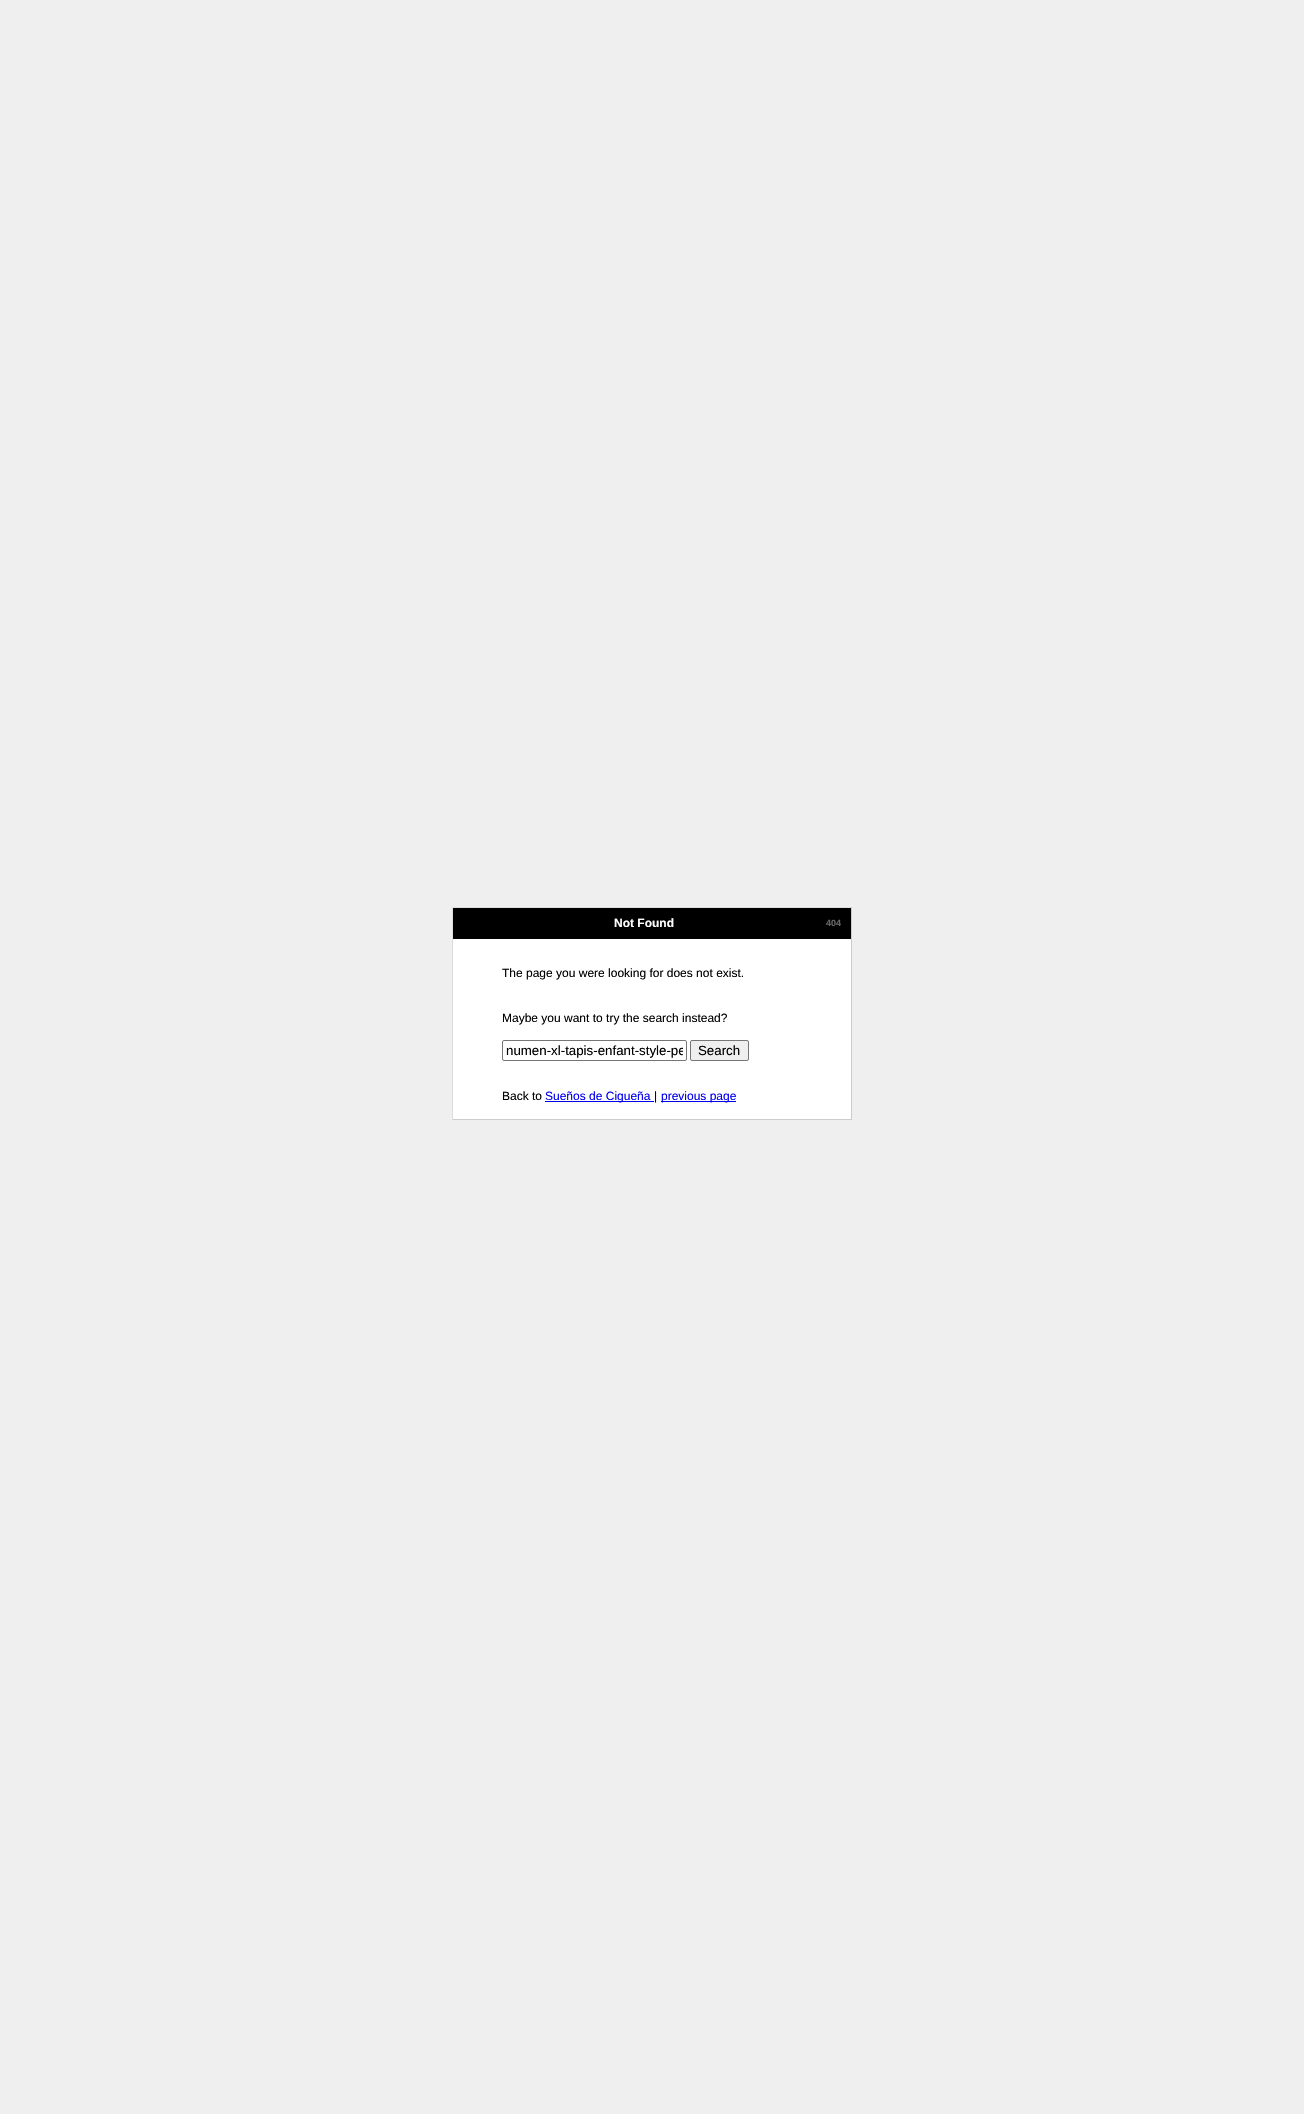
void draw(SkCanvas* canvas) {
	SkPaint paint;
	paint.setAntiAlias(true);
	canvas->clear(0xffefefef);
	paint.setColor(0xffffffff);
	canvas->drawRect(SkRect::MakeXYWH(453, 939, 398, 180), paint);
	paint.setColor(0xffdddddd);
	canvas->drawRect(SkRect::MakeXYWH(452, 907, 400, 1), paint);
	paint.setColor(0xffcccccc);
	canvas->drawRect(SkRect::MakeXYWH(851, 907, 1, 213), paint);
	canvas->drawRect(SkRect::MakeXYWH(452, 1119, 400, 1), paint);
	paint.setColor(0xffdddddd);
	canvas->drawRect(SkRect::MakeXYWH(452, 907, 1, 213), paint);
	paint.setColor(0xff000000);
	canvas->drawRect(SkRect::MakeXYWH(453, 908, 398, 31), paint);
	SkFont f1(fontMgr->matchFamilyStyle("Liberation Sans", SkFontStyle::Bold()), 12);
	f1.setSubpixel(true);
	paint.setColor(0xffffffff);
	canvas->drawString("Not Found", 614, 927, f1, paint);
	SkFont f2(fontMgr->matchFamilyStyle("Liberation Sans", SkFontStyle::Bold()), 9);
	f2.setSubpixel(true);
	paint.setColor(0xff666666);
	canvas->drawString("404", 826, 926, f2, paint);
	SkFont f3(fontMgr->matchFamilyStyle("Liberation Sans", SkFontStyle::Normal()), 12);
	f3.setSubpixel(true);
	paint.setColor(0xff000000);
	canvas->drawString("The page you were looking for does not exist.", 502, 977, f3, paint);
	canvas->drawString("Maybe you want to try the search instead?", 502, 1022, f3, paint);
	paint.setStroke(true);
	paint.setStrokeWidth(1);
	paint.setColor(0xff767676);
	canvas->drawRoundRect(SkRect::MakeXYWH(502.5, 1040.5, 184, 20), 1.5, 1.5, paint);
	canvas->save();
	canvas->clipRect(SkRect::MakeXYWH(506, 1043, 177, 15));
	SkFont f4(fontMgr->matchFamilyStyle("Liberation Sans", SkFontStyle::Normal()), 13.3);
	f4.setSubpixel(true);
	paint.setStroke(false);
	paint.setColor(0xff000000);
	canvas->drawString("numen-xl-tapis-enfant-style-pe", 506, 1055, f4, paint);
	canvas->restore();
	paint.setColor(0xffefefef);
	canvas->drawRoundRect(SkRect::MakeXYWH(690.5, 1040.5, 58, 20), 1.5, 1.5, paint);
	paint.setStroke(true);
	paint.setColor(0xff767676);
	canvas->drawRoundRect(SkRect::MakeXYWH(690.5, 1040.5, 58, 20), 1.5, 1.5, paint);
	paint.setStroke(false);
	paint.setColor(0xff000000);
	canvas->drawString("Search", 698, 1055, f4, paint);
	canvas->drawString("Back to", 502, 1100, f3, paint);
	paint.setColor(0xff0000ee);
	canvas->drawRect(SkRect::MakeXYWH(545, 1101, 109, 1), paint);
	canvas->drawString("Sueños de Cigueña", 545, 1100, f3, paint);
	paint.setColor(0xff000000);
	canvas->drawString("|", 654, 1100, f3, paint);
	paint.setColor(0xff0000ee);
	canvas->drawRect(SkRect::MakeXYWH(661, 1101, 75, 1), paint);
	canvas->drawString("previous page", 661, 1100, f3, paint);
}
